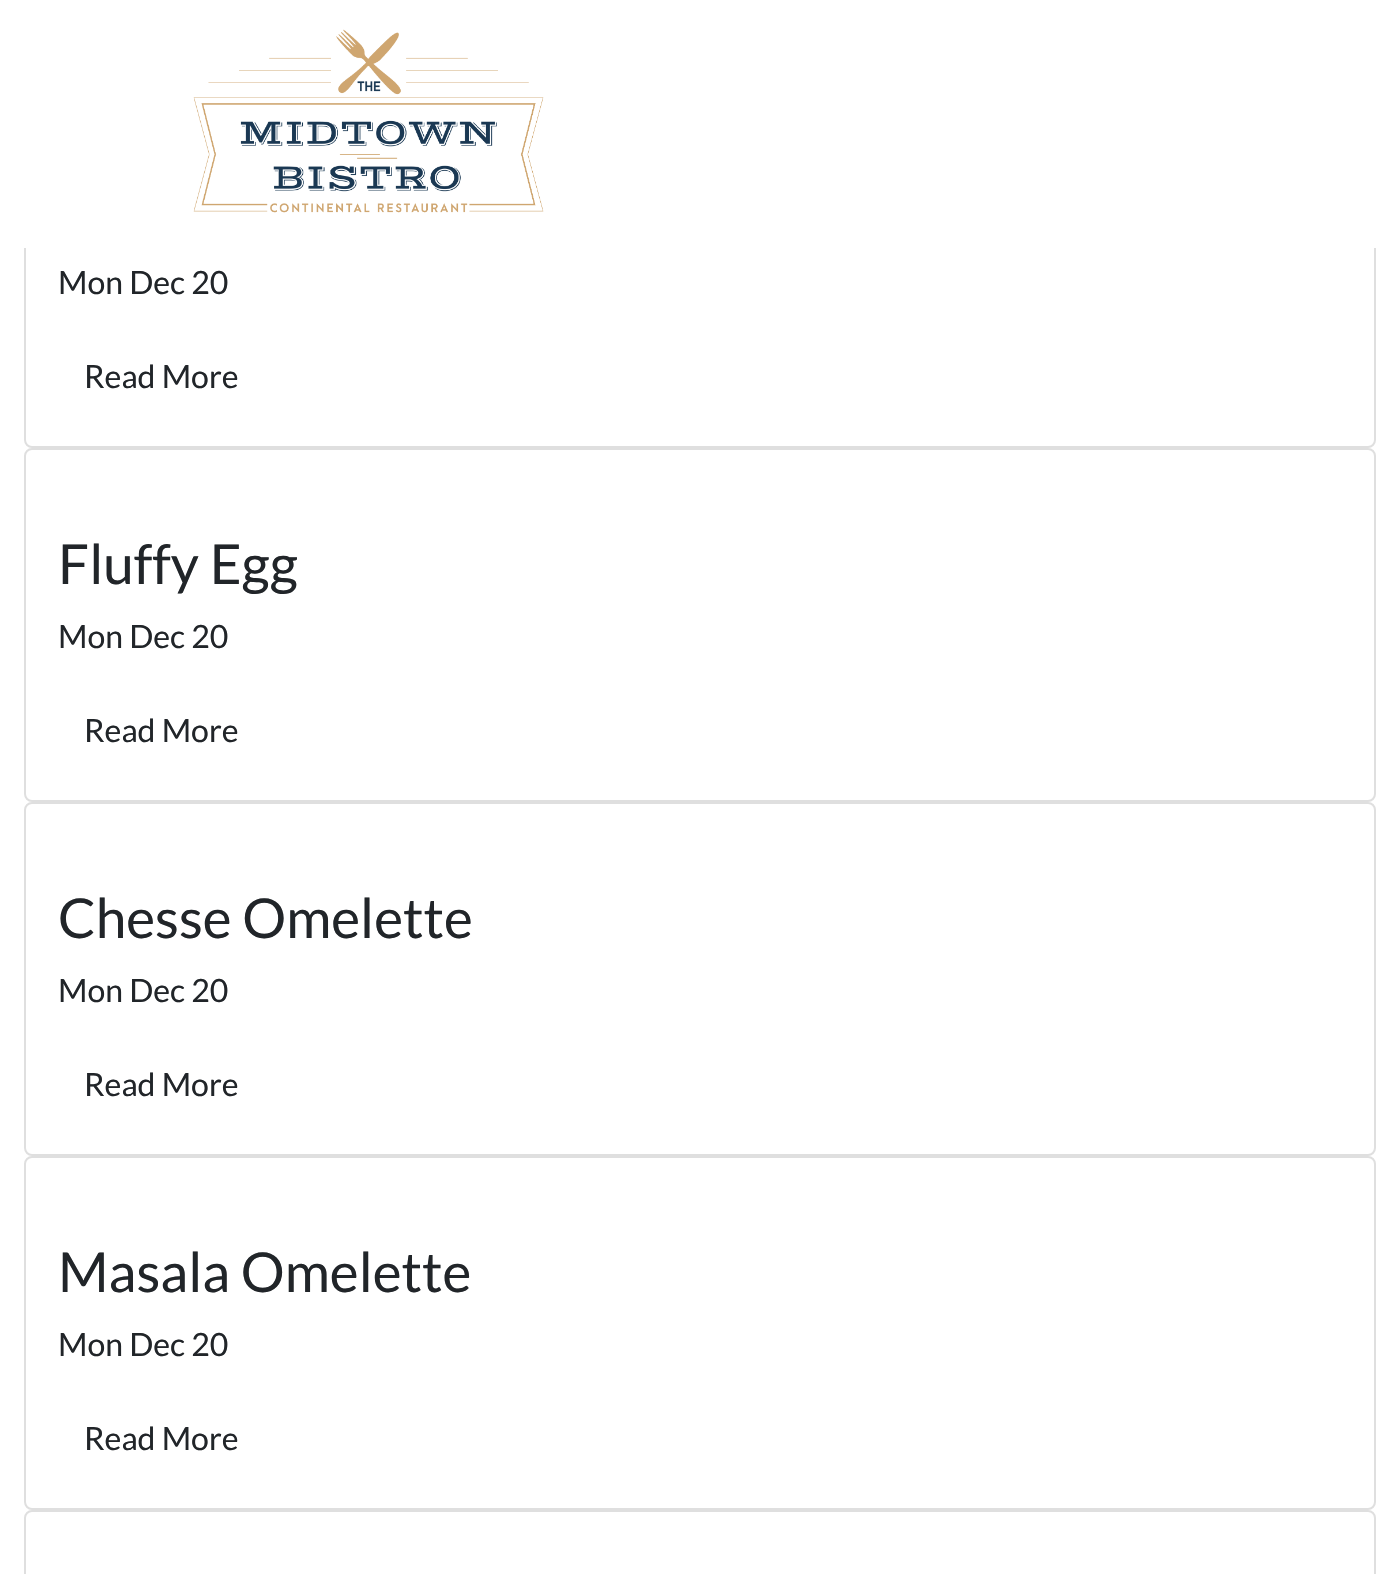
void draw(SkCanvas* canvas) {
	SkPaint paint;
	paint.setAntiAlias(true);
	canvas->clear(0xffffffff);
	paint.setStroke(true);
	paint.setStrokeWidth(2);
	paint.setColor(0xffdfdfdf);
	canvas->drawRoundRect(SkRect::MakeXYWH(25, 95, 1350, 352), 7, 7, paint);
	paint.setStroke(false);
	paint.setColor(0xffffffff);
	canvas->drawRect(SkRect::MakeXYWH(24, 94, 1352, 154), paint);
	canvas->drawImageRect(SkImages::DeferredFromEncodedData(SkData::MakeFromFileName("img1.png")), SkRect::MakeXYWH(193, 29, 351, 184), SkSamplingOptions());
	SkFont f1(fontMgr->matchFamilyStyle("Lato", SkFontStyle::Normal()), 32);
	f1.setSubpixel(true);
	paint.setColor(0xff212529);
	canvas->drawString("Mon Dec 20", 58, 294, f1, paint);
	canvas->drawString("Read More", 84, 388, f1, paint);
	paint.setStroke(true);
	paint.setColor(0xffdfdfdf);
	canvas->drawRoundRect(SkRect::MakeXYWH(25, 449, 1350, 352), 7, 7, paint);
	SkFont f2(fontMgr->matchFamilyStyle("Lato", SkFontStyle::Normal()), 55);
	f2.setSubpixel(true);
	paint.setStroke(false);
	paint.setColor(0xff212529);
	canvas->drawString("Fluffy Egg", 58, 584, f2, paint);
	canvas->drawString("Mon Dec 20", 58, 648, f1, paint);
	canvas->drawString("Read More", 84, 742, f1, paint);
	paint.setStroke(true);
	paint.setColor(0xffdfdfdf);
	canvas->drawRoundRect(SkRect::MakeXYWH(25, 803, 1350, 352), 7, 7, paint);
	paint.setStroke(false);
	paint.setColor(0xff212529);
	canvas->drawString("Chesse Omelette", 58, 938, f2, paint);
	canvas->drawString("Mon Dec 20", 58, 1002, f1, paint);
	canvas->drawString("Read More", 84, 1096, f1, paint);
	paint.setStroke(true);
	paint.setColor(0xffdfdfdf);
	canvas->drawRoundRect(SkRect::MakeXYWH(25, 1157, 1350, 352), 7, 7, paint);
	paint.setStroke(false);
	paint.setColor(0xff212529);
	canvas->drawString("Masala Omelette", 58, 1292, f2, paint);
	canvas->drawString("Mon Dec 20", 58, 1356, f1, paint);
	canvas->drawString("Read More", 84, 1450, f1, paint);
	paint.setStroke(true);
	paint.setColor(0xffdfdfdf);
	canvas->drawRoundRect(SkRect::MakeXYWH(25, 1511, 1350, 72), 7, 7, paint);
}
